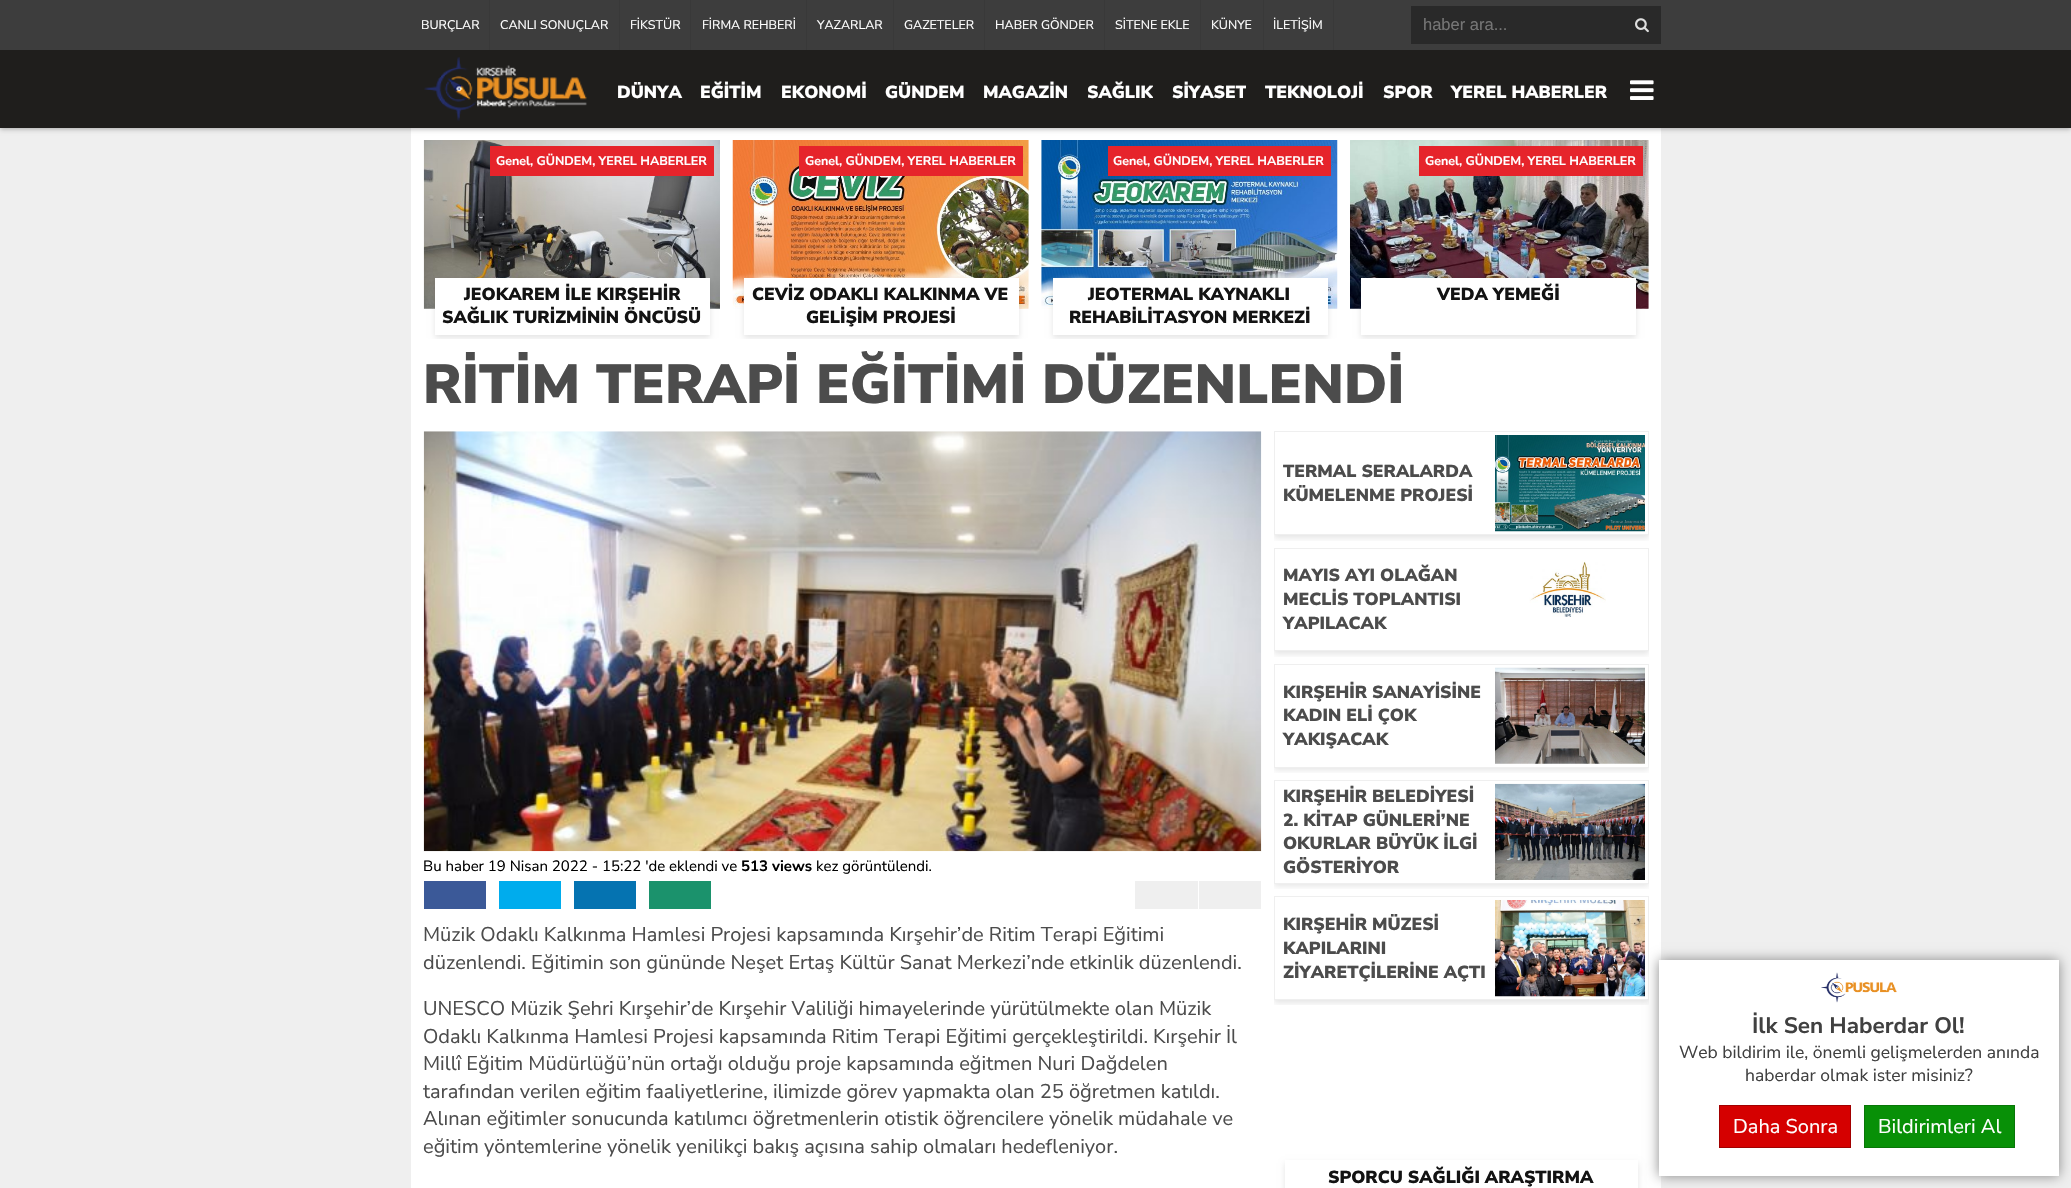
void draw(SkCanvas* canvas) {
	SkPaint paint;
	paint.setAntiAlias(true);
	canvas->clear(0xffefefef);
	paint.setColor(0xffffffff);
	canvas->drawRect(SkRect::MakeXYWH(411, 128, 1250, 1060), paint);
	paint.setColor(0x4d000000);
	paint.setMaskFilter(SkMaskFilter::MakeBlur(kNormal_SkBlurStyle, 2.5));
	canvas->drawRect(SkRect::MakeXYWH(0, 51, 2071, 78), paint);
	paint.setMaskFilter(nullptr);
	paint.setColor(0xff3d3d3d);
	canvas->drawRect(SkRect::MakeXYWH(0, 0, 2071, 50), paint);
	paint.setColor(0xff393939);
	canvas->drawRect(SkRect::MakeXYWH(489, 0, 1, 50), paint);
	SkFont f1(fontMgr->matchFamilyStyle("Nunito Sans", SkFontStyle::Normal()), 12.5);
	f1.setSubpixel(true);
	paint.setColor(0xffffffff);
	canvas->drawString("BURÇLAR", 421, 29, f1, paint);
	paint.setColor(0xff393939);
	canvas->drawRect(SkRect::MakeXYWH(619, 0, 1, 50), paint);
	paint.setColor(0xffffffff);
	canvas->drawString("CANLI SONUÇLAR", 500, 29, f1, paint);
	paint.setColor(0xff393939);
	canvas->drawRect(SkRect::MakeXYWH(690, 0, 1, 50), paint);
	paint.setColor(0xffffffff);
	canvas->drawString("FİKSTÜR", 630, 29, f1, paint);
	paint.setColor(0xff393939);
	canvas->drawRect(SkRect::MakeXYWH(806, 0, 1, 50), paint);
	paint.setColor(0xffffffff);
	canvas->drawString("FİRMA REHBERİ", 702, 29, f1, paint);
	paint.setColor(0xff393939);
	canvas->drawRect(SkRect::MakeXYWH(893, 0, 1, 50), paint);
	paint.setColor(0xffffffff);
	canvas->drawString("YAZARLAR", 817, 29, f1, paint);
	paint.setColor(0xff393939);
	canvas->drawRect(SkRect::MakeXYWH(984, 0, 1, 50), paint);
	paint.setColor(0xffffffff);
	canvas->drawString("GAZETELER", 904, 29, f1, paint);
	paint.setColor(0xff393939);
	canvas->drawRect(SkRect::MakeXYWH(1104, 0, 1, 50), paint);
	paint.setColor(0xffffffff);
	canvas->drawString("HABER GÖNDER", 995, 29, f1, paint);
	paint.setColor(0xff393939);
	canvas->drawRect(SkRect::MakeXYWH(1200, 0, 1, 50), paint);
	paint.setColor(0xffffffff);
	canvas->drawString("SİTENE EKLE", 1115, 29, f1, paint);
	paint.setColor(0xff393939);
	canvas->drawRect(SkRect::MakeXYWH(1263, 0, 1, 50), paint);
	paint.setColor(0xffffffff);
	canvas->drawString("KÜNYE", 1211, 29, f1, paint);
	paint.setColor(0xff393939);
	canvas->drawRect(SkRect::MakeXYWH(1333, 0, 1, 50), paint);
	paint.setColor(0xffffffff);
	canvas->drawString("İLETİŞİM", 1273, 29, f1, paint);
	paint.setColor(0xff292929);
	canvas->drawRect(SkRect::MakeXYWH(1411, 6, 250, 38), paint);
	SkFont f2(fontMgr->matchFamilyStyle("Liberation Sans", SkFontStyle::Normal()), 16.5);
	f2.setSubpixel(true);
	paint.setColor(0xff757575);
	canvas->drawString("haber ara...", 1423, 30, f2, paint);
	canvas->drawImageRect(SkImages::DeferredFromEncodedData(SkData::MakeFromFileName("img1.png")), SkRect::MakeXYWH(1635, 18, 14, 15), SkSamplingOptions());
	paint.setColor(0xff1f1e1c);
	canvas->drawRect(SkRect::MakeXYWH(0, 50, 2071, 78), paint);
	canvas->drawImageRect(SkImages::DeferredFromEncodedData(SkData::MakeFromFileName("img2.png")), SkRect::MakeXYWH(424, 57, 163, 64), SkSamplingOptions());
	SkFont f3(fontMgr->matchFamilyStyle("Nunito Sans", SkFontStyle(900, SkFontStyle::kNormal_Width, SkFontStyle::kUpright_Slant)), 17.5);
	f3.setSubpixel(true);
	paint.setColor(0xffffffff);
	canvas->drawString("DÜNYA", 617, 98, f3, paint);
	canvas->drawString("EĞİTİM", 700, 98, f3, paint);
	canvas->drawString("EKONOMİ", 781, 98, f3, paint);
	canvas->drawString("GÜNDEM", 885, 98, f3, paint);
	canvas->drawString("MAGAZİN", 983, 98, f3, paint);
	canvas->save();
	canvas->clipRect(SkRect::MakeXYWH(1088, 56, 65, 65));
	canvas->drawString("SAĞLIK", 1087, 98, f3, paint);
	canvas->restore();
	canvas->save();
	canvas->clipRect(SkRect::MakeXYWH(1171, 56, 75, 65));
	canvas->drawString("SİYASET", 1172, 98, f3, paint);
	canvas->restore();
	canvas->drawString("TEKNOLOJİ", 1265, 98, f3, paint);
	canvas->drawString("SPOR", 1383, 98, f3, paint);
	canvas->drawString("YEREL HABERLER", 1451, 98, f3, paint);
	canvas->drawImageRect(SkImages::DeferredFromEncodedData(SkData::MakeFromFileName("img3.png")), SkRect::MakeXYWH(1630, 80, 24, 20), SkSamplingOptions());
	canvas->drawImageRect(SkImages::DeferredFromEncodedData(SkData::MakeFromFileName("img4.png")), SkRect::MakeXYWH(423, 140, 297, 169), SkSamplingOptions());
	paint.setColor(0xffe6242b);
	canvas->drawRect(SkRect::MakeXYWH(490, 146, 224, 30), paint);
	SkFont f4(fontMgr->matchFamilyStyle("Nunito Sans", SkFontStyle::Bold()), 12.5);
	f4.setSubpixel(true);
	paint.setColor(0xffffffff);
	canvas->drawString("Genel, GÜNDEM, YEREL HABERLER", 496, 165, f4, paint);
	canvas->save();
	canvas->clipRect(SkRect::MakeXYWH(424, 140, 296, 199));
	paint.setColor(0x1a000000);
	paint.setMaskFilter(SkMaskFilter::MakeBlur(kNormal_SkBlurStyle, 3));
	canvas->drawRect(SkRect::MakeXYWH(435, 280, 275, 58), paint);
	paint.setMaskFilter(nullptr);
	canvas->restore();
	paint.setColor(0xffffffff);
	canvas->drawRect(SkRect::MakeXYWH(435, 278, 275, 57), paint);
	paint.setColor(0xff131313);
	canvas->drawString("JEOKAREM İLE KIRŞEHİR", 464, 300, f3, paint);
	canvas->drawString("SAĞLIK TURİZMİNİN ÖNCÜSÜ", 442, 323, f3, paint);
	canvas->drawImageRect(SkImages::DeferredFromEncodedData(SkData::MakeFromFileName("img5.png")), SkRect::MakeXYWH(732, 140, 297, 169), SkSamplingOptions());
	paint.setColor(0xffe6242b);
	canvas->drawRect(SkRect::MakeXYWH(799, 146, 224, 30), paint);
	paint.setColor(0xffffffff);
	canvas->drawString("Genel, GÜNDEM, YEREL HABERLER", 805, 165, f4, paint);
	canvas->save();
	canvas->clipRect(SkRect::MakeXYWH(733, 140, 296, 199));
	paint.setColor(0x1a000000);
	paint.setMaskFilter(SkMaskFilter::MakeBlur(kNormal_SkBlurStyle, 3));
	canvas->drawRect(SkRect::MakeXYWH(744, 280, 275, 58), paint);
	paint.setMaskFilter(nullptr);
	canvas->restore();
	paint.setColor(0xffffffff);
	canvas->drawRect(SkRect::MakeXYWH(744, 278, 275, 57), paint);
	paint.setColor(0xff131313);
	canvas->drawString("CEVİZ ODAKLI KALKINMA VE", 752, 300, f3, paint);
	canvas->drawString("GELİŞİM PROJESİ", 806, 323, f3, paint);
	canvas->drawImageRect(SkImages::DeferredFromEncodedData(SkData::MakeFromFileName("img6.png")), SkRect::MakeXYWH(1041, 140, 297, 169), SkSamplingOptions());
	paint.setColor(0xffe6242b);
	canvas->drawRect(SkRect::MakeXYWH(1108, 146, 223, 30), paint);
	paint.setColor(0xffffffff);
	canvas->drawString("Genel, GÜNDEM, YEREL HABERLER", 1113, 165, f4, paint);
	canvas->save();
	canvas->clipRect(SkRect::MakeXYWH(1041, 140, 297, 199));
	paint.setColor(0x1a000000);
	paint.setMaskFilter(SkMaskFilter::MakeBlur(kNormal_SkBlurStyle, 3));
	canvas->drawRect(SkRect::MakeXYWH(1053, 280, 275, 58), paint);
	paint.setMaskFilter(nullptr);
	canvas->restore();
	paint.setColor(0xffffffff);
	canvas->drawRect(SkRect::MakeXYWH(1053, 278, 275, 57), paint);
	paint.setColor(0xff131313);
	canvas->drawString("JEOTERMAL KAYNAKLI", 1088, 300, f3, paint);
	canvas->drawString("REHABİLİTASYON MERKEZİ", 1069, 323, f3, paint);
	canvas->drawImageRect(SkImages::DeferredFromEncodedData(SkData::MakeFromFileName("img7.png")), SkRect::MakeXYWH(1350, 140, 299, 169), SkSamplingOptions());
	paint.setColor(0xffe6242b);
	canvas->drawRect(SkRect::MakeXYWH(1419, 146, 224, 30), paint);
	paint.setColor(0xffffffff);
	canvas->drawString("Genel, GÜNDEM, YEREL HABERLER", 1425, 165, f4, paint);
	canvas->save();
	canvas->clipRect(SkRect::MakeXYWH(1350, 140, 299, 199));
	paint.setColor(0x1a000000);
	paint.setMaskFilter(SkMaskFilter::MakeBlur(kNormal_SkBlurStyle, 3));
	canvas->drawRect(SkRect::MakeXYWH(1361, 280, 275, 58), paint);
	paint.setMaskFilter(nullptr);
	canvas->restore();
	paint.setColor(0xffffffff);
	canvas->drawRect(SkRect::MakeXYWH(1361, 278, 275, 57), paint);
	paint.setColor(0xff131313);
	canvas->drawString("VEDA YEMEĞİ", 1437, 300, f3, paint);
	SkFont f5(fontMgr->matchFamilyStyle("Nunito Sans", SkFontStyle(900, SkFontStyle::kNormal_Width, SkFontStyle::kUpright_Slant)), 55);
	f5.setSubpixel(true);
	paint.setColor(0xff4c4c4c);
	canvas->drawString("RİTİM TERAPİ EĞİTİMİ DÜZENLENDİ", 423, 403, f5, paint);
	canvas->drawImageRect(SkImages::DeferredFromEncodedData(SkData::MakeFromFileName("img8.png")), SkRect::MakeXYWH(423, 431, 839, 421), SkSamplingOptions());
	paint.setColor(0xccffffff);
	canvas->drawRect(SkRect::MakeXYWH(424, 851, 837, 1), paint);
	SkFont f6(fontMgr->matchFamilyStyle("Nunito Sans", SkFontStyle::Normal()), 15);
	f6.setSubpixel(true);
	paint.setColor(0xff000000);
	canvas->drawString("Bu haber 19 Nisan 2022 - 15:22 'de eklendi ve", 423, 871, f6, paint);
	SkFont f7(fontMgr->matchFamilyStyle("Nunito Sans", SkFontStyle::Bold()), 15);
	f7.setSubpixel(true);
	canvas->drawString("513 views", 741, 871, f7, paint);
	canvas->drawString("kez görüntülendi.", 816, 871, f6, paint);
	paint.setColor(0xff3b5998);
	canvas->drawRect(SkRect::MakeXYWH(424, 881, 62, 28), paint);
	paint.setColor(0xff00aced);
	canvas->drawRect(SkRect::MakeXYWH(499, 881, 62, 28), paint);
	paint.setColor(0xff0573b1);
	canvas->drawRect(SkRect::MakeXYWH(574, 881, 62, 28), paint);
	paint.setColor(0xff1b926c);
	canvas->drawRect(SkRect::MakeXYWH(649, 881, 62, 28), paint);
	paint.setColor(0xffefefef);
	canvas->drawRect(SkRect::MakeXYWH(1135, 881, 63, 28), paint);
	canvas->drawRect(SkRect::MakeXYWH(1199, 881, 62, 28), paint);
	SkFont f8(fontMgr->matchFamilyStyle("Nunito Sans", SkFontStyle::Normal()), 20);
	f8.setSubpixel(true);
	paint.setColor(0xff4c4c4c);
	canvas->drawString("Müzik Odaklı Kalkınma Hamlesi Projesi kapsamında Kırşehir’de Ritim Terapi Eğitimi", 423, 941, f8, paint);
	canvas->drawString("düzenlendi. Eğitimin son gününde Neşet Ertaş Kültür Sanat Merkezi’nde etkinlik düzenlendi.", 423, 969, f8, paint);
	canvas->drawString("UNESCO Müzik Şehri Kırşehir’de Kırşehir Valiliği himayelerinde yürütülmekte olan Müzik", 423, 1015, f8, paint);
	canvas->drawString("Odaklı Kalkınma Hamlesi Projesi kapsamında Ritim Terapi Eğitimi gerçekleştirildi. Kırşehir İl", 423, 1043, f8, paint);
	canvas->drawString("Millî Eğitim Müdürlüğü’nün ortağı olduğu proje kapsamında eğitmen Nuri Dağdelen", 423, 1070, f8, paint);
	canvas->drawString("tarafından verilen eğitim faaliyetlerine, ilimizde görev yapmakta olan 25 öğretmen katıldı.", 423, 1098, f8, paint);
	canvas->drawString("Alınan eğitimler sonucunda katılımcı öğretmenlerin otistik öğrencilere yönelik müdahale ve", 423, 1125, f8, paint);
	canvas->drawString("eğitim yöntemlerine yönelik yenilikçi bakış açısına sahip olmaları hedefleniyor.", 423, 1153, f8, paint);
	canvas->save();
	canvas->clipRect(SkRect::MakeXYWH(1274, 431, 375, 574));
	canvas->clipRect(SkRect::MakeXYWH(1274, 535, 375, 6));
	paint.setColor(0x1a000000);
	paint.setMaskFilter(SkMaskFilter::MakeBlur(kNormal_SkBlurStyle, 3));
	canvas->drawRect(SkRect::MakeXYWH(1274, 434, 375, 104), paint);
	paint.setMaskFilter(nullptr);
	canvas->restore();
	paint.setStroke(true);
	paint.setStrokeWidth(1);
	paint.setColor(0xffefefef);
	canvas->drawRect(SkRect::MakeXYWH(1274.5, 431.5, 374, 103), paint);
	paint.setStroke(false);
	paint.setColor(0xff4c4c4c);
	canvas->drawString("TERMAL SERALARDA", 1283, 477, f3, paint);
	canvas->drawString("KÜMELENME PROJESİ", 1283, 501, f3, paint);
	canvas->drawImageRect(SkImages::DeferredFromEncodedData(SkData::MakeFromFileName("img9.png")), SkRect::MakeXYWH(1495, 435, 150, 97), SkSamplingOptions());
	canvas->save();
	canvas->clipRect(SkRect::MakeXYWH(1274, 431, 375, 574));
	canvas->clipRect(SkRect::MakeXYWH(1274, 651, 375, 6));
	paint.setColor(0x1a000000);
	paint.setMaskFilter(SkMaskFilter::MakeBlur(kNormal_SkBlurStyle, 3));
	canvas->drawRect(SkRect::MakeXYWH(1274, 550, 375, 104), paint);
	paint.setMaskFilter(nullptr);
	canvas->restore();
	paint.setStroke(true);
	paint.setColor(0xffefefef);
	canvas->drawRect(SkRect::MakeXYWH(1274.5, 548.5, 374, 102), paint);
	paint.setStroke(false);
	paint.setColor(0xff4c4c4c);
	canvas->drawString("MAYIS AYI OLAĞAN", 1283, 581, f3, paint);
	canvas->drawString("MECLİS TOPLANTISI", 1283, 605, f3, paint);
	canvas->drawString("YAPILACAK", 1283, 629, f3, paint);
	canvas->drawImageRect(SkImages::DeferredFromEncodedData(SkData::MakeFromFileName("img10.png")), SkRect::MakeXYWH(1529, 560, 77, 57), SkSamplingOptions());
	canvas->save();
	canvas->clipRect(SkRect::MakeXYWH(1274, 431, 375, 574));
	canvas->clipRect(SkRect::MakeXYWH(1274, 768, 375, 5));
	paint.setColor(0x1a000000);
	paint.setMaskFilter(SkMaskFilter::MakeBlur(kNormal_SkBlurStyle, 3));
	canvas->drawRect(SkRect::MakeXYWH(1274, 666, 375, 104), paint);
	paint.setMaskFilter(nullptr);
	canvas->restore();
	paint.setStroke(true);
	paint.setColor(0xffefefef);
	canvas->drawRect(SkRect::MakeXYWH(1274.5, 664.5, 374, 103), paint);
	paint.setStroke(false);
	paint.setColor(0xff4c4c4c);
	canvas->drawString("KIRŞEHİR SANAYİSİNE", 1283, 698, f3, paint);
	canvas->drawString("KADIN ELİ ÇOK", 1283, 721, f3, paint);
	canvas->drawString("YAKIŞACAK", 1283, 745, f3, paint);
	canvas->drawImageRect(SkImages::DeferredFromEncodedData(SkData::MakeFromFileName("img11.png")), SkRect::MakeXYWH(1495, 667, 150, 97), SkSamplingOptions());
	canvas->save();
	canvas->clipRect(SkRect::MakeXYWH(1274, 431, 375, 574));
	canvas->clipRect(SkRect::MakeXYWH(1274, 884, 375, 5));
	paint.setColor(0x1a000000);
	paint.setMaskFilter(SkMaskFilter::MakeBlur(kNormal_SkBlurStyle, 3));
	canvas->drawRect(SkRect::MakeXYWH(1274, 783, 375, 103), paint);
	paint.setMaskFilter(nullptr);
	canvas->restore();
	paint.setStroke(true);
	paint.setColor(0xffefefef);
	canvas->drawRect(SkRect::MakeXYWH(1274.5, 780.5, 374, 103), paint);
	paint.setStroke(false);
	paint.setColor(0xff4c4c4c);
	canvas->drawString("KIRŞEHİR BELEDİYESİ", 1283, 802, f3, paint);
	canvas->drawString("2. KİTAP GÜNLERİ’NE", 1283, 826, f3, paint);
	canvas->drawString("OKURLAR BÜYÜK İLGİ", 1283, 849, f3, paint);
	canvas->drawString("GÖSTERİYOR", 1283, 873, f3, paint);
	canvas->drawImageRect(SkImages::DeferredFromEncodedData(SkData::MakeFromFileName("img12.png")), SkRect::MakeXYWH(1495, 783, 150, 97), SkSamplingOptions());
	canvas->save();
	canvas->clipRect(SkRect::MakeXYWH(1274, 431, 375, 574));
	canvas->clipRect(SkRect::MakeXYWH(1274, 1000, 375, 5));
	paint.setColor(0x1a000000);
	paint.setMaskFilter(SkMaskFilter::MakeBlur(kNormal_SkBlurStyle, 3));
	canvas->drawRect(SkRect::MakeXYWH(1274, 899, 375, 104), paint);
	paint.setMaskFilter(nullptr);
	canvas->restore();
	paint.setStroke(true);
	paint.setColor(0xffefefef);
	canvas->drawRect(SkRect::MakeXYWH(1274.5, 896.5, 374, 103), paint);
	paint.setStroke(false);
	paint.setColor(0xff4c4c4c);
	canvas->drawString("KIRŞEHİR MÜZESİ", 1283, 930, f3, paint);
	canvas->drawString("KAPILARINI", 1283, 954, f3, paint);
	canvas->drawString("ZİYARETÇİLERİNE AÇTI", 1283, 978, f3, paint);
	canvas->drawImageRect(SkImages::DeferredFromEncodedData(SkData::MakeFromFileName("img13.png")), SkRect::MakeXYWH(1495, 900, 150, 97), SkSamplingOptions());
	paint.setColor(0x1a000000);
	paint.setMaskFilter(SkMaskFilter::MakeBlur(kNormal_SkBlurStyle, 3));
	canvas->drawRect(SkRect::MakeXYWH(1285, 1163, 353, 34), paint);
	paint.setMaskFilter(nullptr);
	paint.setColor(0xffffffff);
	canvas->drawRect(SkRect::MakeXYWH(1285, 1160, 353, 28), paint);
	paint.setColor(0xff131313);
	canvas->drawString("SPORCU SAĞLIĞI ARAŞTIRMA", 1328, 1183, f3, paint);
	paint.setColor(0xff888888);
	paint.setMaskFilter(SkMaskFilter::MakeBlur(kNormal_SkBlurStyle, 6));
	canvas->drawRect(SkRect::MakeXYWH(1659, 960, 400, 216), paint);
	paint.setMaskFilter(nullptr);
	paint.setColor(0xffffffff);
	canvas->drawRect(SkRect::MakeXYWH(1659, 960, 400, 216), paint);
	canvas->drawImageRect(SkImages::DeferredFromEncodedData(SkData::MakeFromFileName("img14.png")), SkRect::MakeXYWH(1821, 972, 76, 31), SkSamplingOptions());
	SkFont f9(fontMgr->matchFamilyStyle("Nunito Sans", SkFontStyle::Bold()), 22.5);
	f9.setSubpixel(true);
	paint.setColor(0xff404040);
	canvas->drawString("İlk Sen Haberdar Ol!", 1752, 1033, f9, paint);
	SkFont f10(fontMgr->matchFamilyStyle("Nunito Sans", SkFontStyle::Normal()), 17.5);
	f10.setSubpixel(true);
	canvas->drawString("Web bildirim ile, önemli gelişmelerden anında", 1679, 1058, f10, paint);
	canvas->drawString("haberdar olmak ister misiniz?", 1745, 1081, f10, paint);
	paint.setColor(0xffd50000);
	canvas->drawRect(SkRect::MakeXYWH(1719.5, 1105.5, 131, 42), paint);
	paint.setStroke(true);
	paint.setColor(0xffa20000);
	canvas->drawRect(SkRect::MakeXYWH(1719.5, 1105.5, 131, 42), paint);
	paint.setStroke(false);
	paint.setColor(0xffffffff);
	canvas->drawString("Daha Sonra", 1733, 1133, f8, paint);
	paint.setColor(0xff089007);
	canvas->drawRect(SkRect::MakeXYWH(1864.5, 1105.5, 150, 42), paint);
	paint.setStroke(true);
	paint.setColor(0xff087708);
	canvas->drawRect(SkRect::MakeXYWH(1864.5, 1105.5, 150, 42), paint);
	paint.setStroke(false);
	paint.setColor(0xffffffff);
	canvas->drawString("Bildirimleri Al", 1878, 1133, f8, paint);
}
